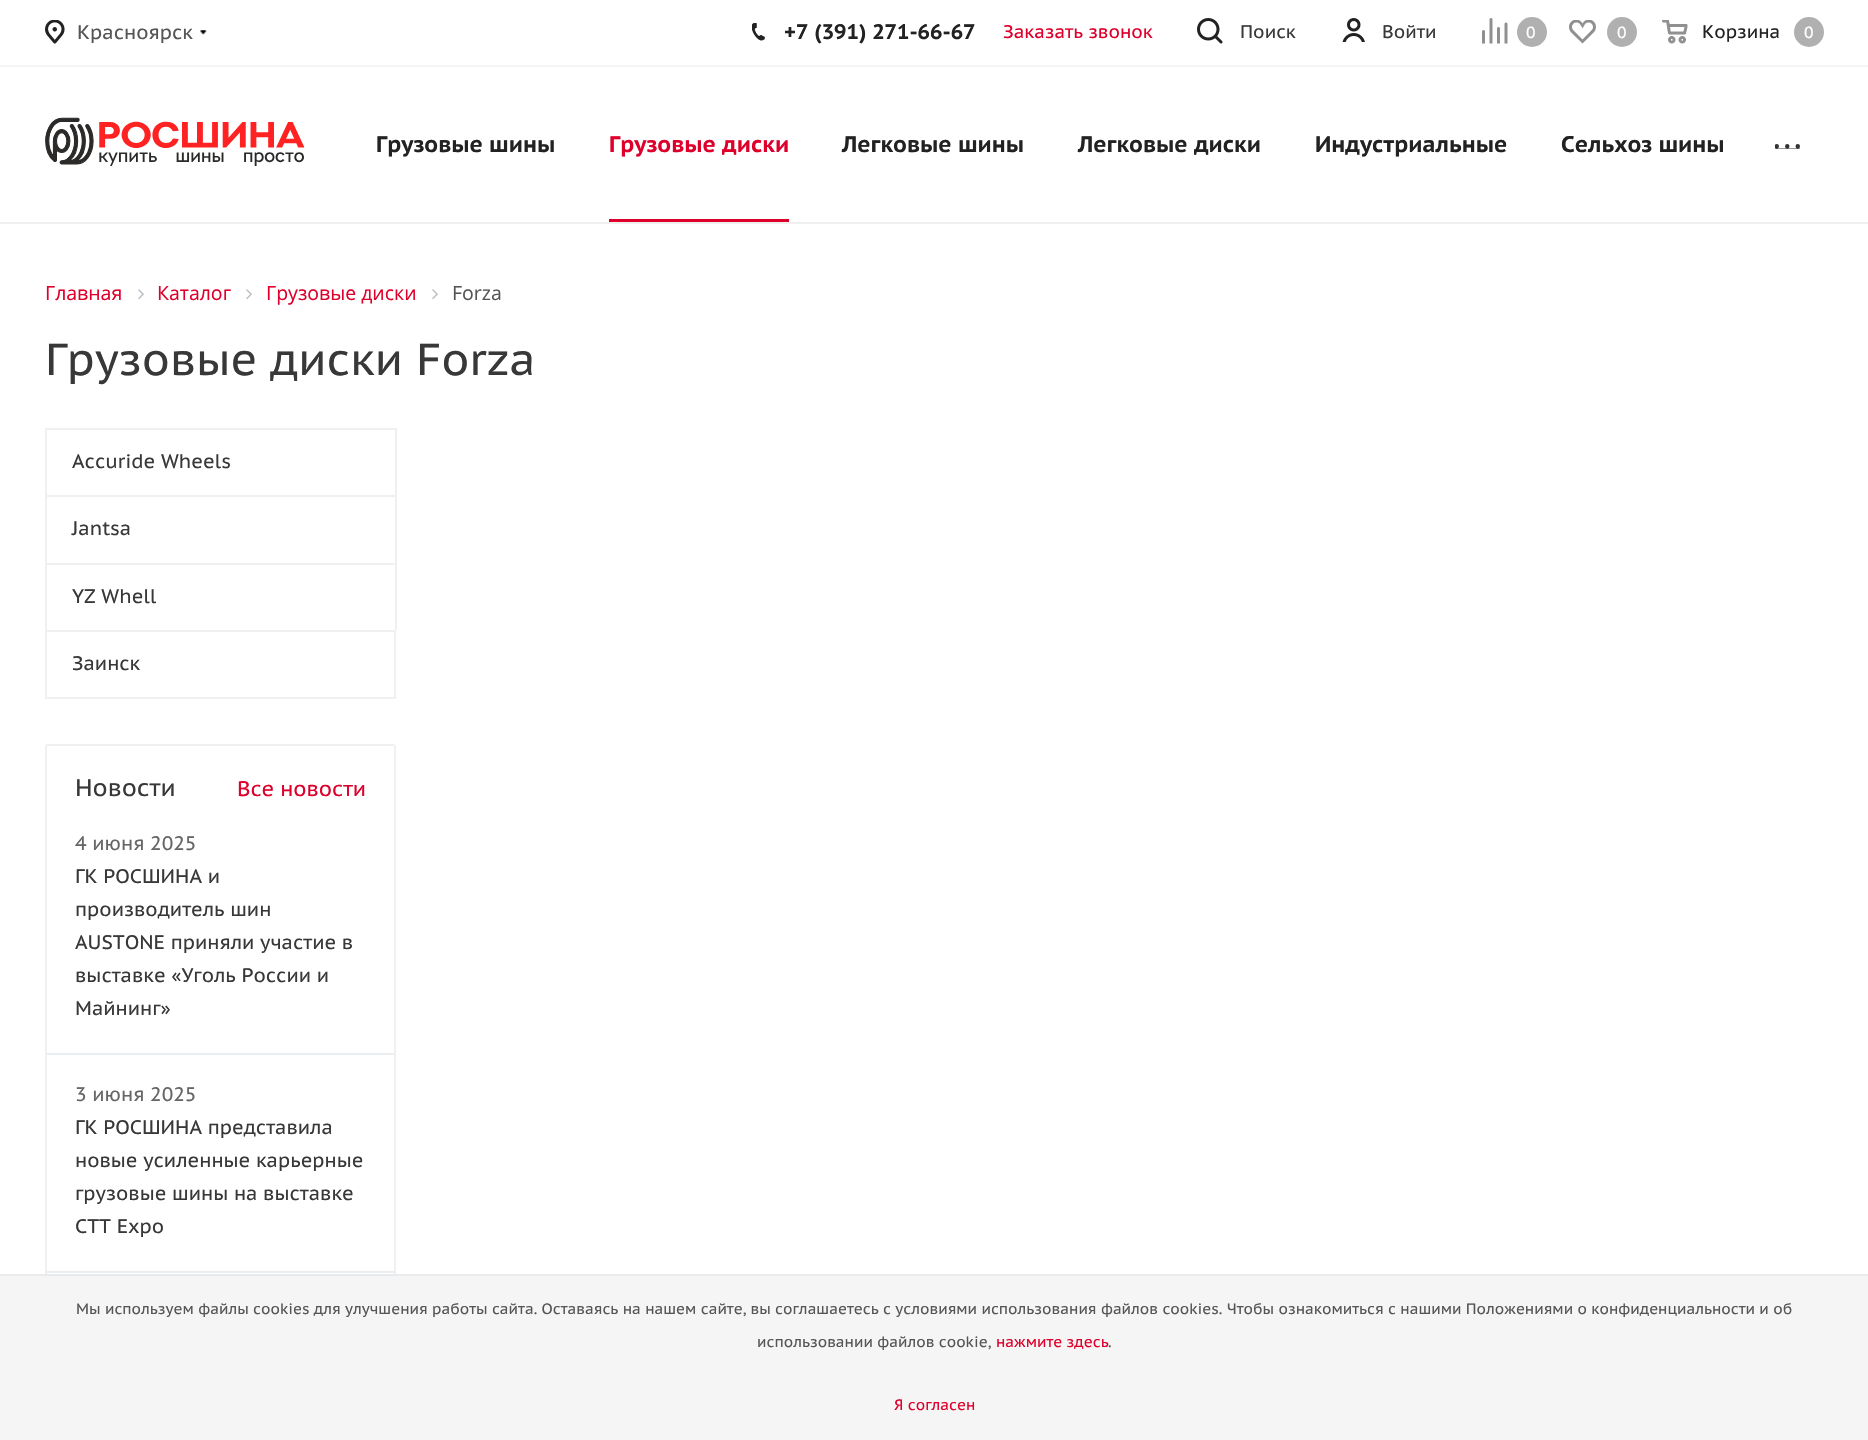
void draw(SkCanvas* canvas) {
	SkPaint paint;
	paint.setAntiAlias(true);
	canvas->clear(0xffffffff);
	paint.setColor(0xfff6f6f6);
	canvas->drawRect(SkRect::MakeXYWH(0, 65, 1868, 2), paint);
	canvas->drawImageRect(SkImages::DeferredFromEncodedData(SkData::MakeFromFileName("img1.png")), SkRect::MakeXYWH(45, 20, 20, 24), SkSamplingOptions());
	SkFont f1(fontMgr->matchFamilyStyle("PT Sans Caption", SkFontStyle::Normal()), 19.5);
	f1.setSubpixel(true);
	paint.setColor(0xff555555);
	canvas->drawString("Красноярск", 77, 39, f1, paint);
	canvas->drawImageRect(SkImages::DeferredFromEncodedData(SkData::MakeFromFileName("img2.png")), SkRect::MakeXYWH(200, 30, 7, 5), SkSamplingOptions());
	canvas->drawImageRect(SkImages::DeferredFromEncodedData(SkData::MakeFromFileName("img3.png")), SkRect::MakeXYWH(752, 23, 13, 18), SkSamplingOptions());
	SkFont f2(fontMgr->matchFamilyStyle("PT Sans Caption", SkFontStyle::Bold()), 21);
	f2.setSubpixel(true);
	paint.setColor(0xff222222);
	canvas->drawString("+7 (391) 271-66-67", 784, 39, f2, paint);
	SkFont f3(fontMgr->matchFamilyStyle("PT Sans Caption", SkFontStyle::Normal()), 18.25);
	f3.setSubpixel(true);
	paint.setColor(0xffde002b);
	canvas->drawString("Заказать звонок", 1003, 38, f3, paint);
	canvas->drawImageRect(SkImages::DeferredFromEncodedData(SkData::MakeFromFileName("img4.png")), SkRect::MakeXYWH(1197, 18, 26, 26), SkSamplingOptions());
	paint.setColor(0xff383838);
	canvas->drawString("Поиск", 1240, 38, f3, paint);
	canvas->drawImageRect(SkImages::DeferredFromEncodedData(SkData::MakeFromFileName("img5.png")), SkRect::MakeXYWH(1342, 18, 23, 24), SkSamplingOptions());
	canvas->drawString("Войти", 1382, 38, f3, paint);
	canvas->drawImageRect(SkImages::DeferredFromEncodedData(SkData::MakeFromFileName("img6.png")), SkRect::MakeXYWH(1482, 18, 26, 26), SkSamplingOptions());
	paint.setColor(0xffb0b0b0);
	canvas->drawCircle(1532, 32, 15, paint);
	SkFont f4(fontMgr->matchFamilyStyle("PT Sans Caption", SkFontStyle::Normal()), 16);
	f4.setSubpixel(true);
	paint.setColor(0xffffffff);
	canvas->drawString("0", 1526, 38, f4, paint);
	canvas->drawImageRect(SkImages::DeferredFromEncodedData(SkData::MakeFromFileName("img7.png")), SkRect::MakeXYWH(1569, 20, 27, 24), SkSamplingOptions());
	paint.setColor(0xffb0b0b0);
	canvas->drawCircle(1622, 32, 15, paint);
	paint.setColor(0xffffffff);
	canvas->drawString("0", 1617, 38, f4, paint);
	canvas->drawImageRect(SkImages::DeferredFromEncodedData(SkData::MakeFromFileName("img8.png")), SkRect::MakeXYWH(1662, 20, 26, 24), SkSamplingOptions());
	paint.setColor(0xff222222);
	canvas->drawString("Корзина", 1702, 38, f3, paint);
	paint.setColor(0xffb0b0b0);
	canvas->drawCircle(1809, 32, 15, paint);
	paint.setColor(0xffffffff);
	canvas->drawString("0", 1804, 38, f4, paint);
	canvas->drawImageRect(SkImages::DeferredFromEncodedData(SkData::MakeFromFileName("img9.png")), SkRect::MakeXYWH(45, 117, 260, 49), SkSamplingOptions());
	SkFont f5(fontMgr->matchFamilyStyle("PT Sans Caption", SkFontStyle::Bold()), 22.5);
	f5.setSubpixel(true);
	paint.setColor(0xff222222);
	canvas->drawString("Грузовые шины", 376, 152, f5, paint);
	paint.setColor(0xffde002b);
	canvas->drawString("Грузовые диски", 609, 152, f5, paint);
	canvas->drawRect(SkRect::MakeXYWH(609, 219, 180, 3), paint);
	paint.setColor(0xff222222);
	canvas->drawString("Легковые шины", 842, 152, f5, paint);
	canvas->drawString("Легковые диски", 1078, 152, f5, paint);
	canvas->drawString("Индустриальные", 1315, 152, f5, paint);
	canvas->drawString("Сельхоз шины", 1561, 152, f5, paint);
	paint.setColor(0xff333333);
	canvas->drawRect(SkRect::MakeXYWH(1775, 144, 25, 5), paint);
	canvas->drawImageRect(SkImages::DeferredFromEncodedData(SkData::MakeFromFileName("img10.png")), SkRect::MakeXYWH(1775, 144, 25, 5), SkSamplingOptions());
	paint.setColor(0xfff0f0f0);
	canvas->drawRect(SkRect::MakeXYWH(0, 222, 1868, 2), paint);
	SkFont f6(fontMgr->matchFamilyStyle("Open Sans", SkFontStyle::Normal()), 19.5);
	f6.setSubpixel(true);
	paint.setColor(0xffde002b);
	canvas->drawString("Главная", 45, 300, f6, paint);
	canvas->drawImageRect(SkImages::DeferredFromEncodedData(SkData::MakeFromFileName("img11.png")), SkRect::MakeXYWH(138, 289, 6, 11), SkSamplingOptions());
	canvas->drawString("Каталог", 157, 300, f6, paint);
	canvas->drawImageRect(SkImages::DeferredFromEncodedData(SkData::MakeFromFileName("img11.png")), SkRect::MakeXYWH(246, 289, 6, 11), SkSamplingOptions());
	canvas->drawString("Грузовые диски", 266, 300, f6, paint);
	canvas->drawImageRect(SkImages::DeferredFromEncodedData(SkData::MakeFromFileName("img11.png")), SkRect::MakeXYWH(432, 289, 6, 11), SkSamplingOptions());
	paint.setColor(0xff555555);
	canvas->drawString("Forza", 452, 300, f6, paint);
	SkFont f7(fontMgr->matchFamilyStyle("PT Sans Caption", SkFontStyle::Normal()), 44.75);
	f7.setSubpixel(true);
	paint.setColor(0xff383838);
	canvas->drawString("Грузовые диски Forza", 45, 375, f7, paint);
	paint.setColor(0xfff0f0f0);
	canvas->drawRect(SkRect::MakeXYWH(45, 428, 351, 2), paint);
	canvas->drawRect(SkRect::MakeXYWH(395, 428, 2, 67), paint);
	canvas->drawRect(SkRect::MakeXYWH(45, 428, 2, 67), paint);
	paint.setColor(0xff383838);
	canvas->drawString("Accuride Wheels", 72, 468, f1, paint);
	paint.setColor(0xfff0f0f0);
	canvas->drawRect(SkRect::MakeXYWH(45, 495, 351, 2), paint);
	canvas->drawRect(SkRect::MakeXYWH(395, 495, 2, 68), paint);
	canvas->drawRect(SkRect::MakeXYWH(45, 495, 2, 68), paint);
	paint.setColor(0xff383838);
	canvas->drawString("Jantsa", 72, 535, f1, paint);
	paint.setColor(0xfff0f0f0);
	canvas->drawRect(SkRect::MakeXYWH(45, 563, 351, 2), paint);
	canvas->drawRect(SkRect::MakeXYWH(395, 563, 2, 67), paint);
	canvas->drawRect(SkRect::MakeXYWH(45, 563, 2, 67), paint);
	paint.setColor(0xff383838);
	canvas->drawString("YZ Whell", 72, 603, f1, paint);
	paint.setStroke(true);
	paint.setStrokeWidth(2);
	paint.setColor(0xfff0f0f0);
	canvas->drawRect(SkRect::MakeXYWH(46, 631, 349, 67), paint);
	paint.setStroke(false);
	paint.setColor(0xff383838);
	canvas->drawString("Заинск", 72, 670, f1, paint);
	paint.setStroke(true);
	paint.setColor(0xfff0f0f0);
	canvas->drawRoundRect(SkRect::MakeXYWH(46, 745, 349, 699), 2, 2, paint);
	SkFont f8(fontMgr->matchFamilyStyle("PT Sans Caption", SkFontStyle::Normal()), 24);
	f8.setSubpixel(true);
	paint.setStroke(false);
	paint.setColor(0xff383838);
	canvas->drawString("Новости", 75, 796, f8, paint);
	SkFont f9(fontMgr->matchFamilyStyle("PT Sans Caption", SkFontStyle::Normal()), 21);
	f9.setSubpixel(true);
	paint.setColor(0xffde002b);
	canvas->drawString("Все новости", 237, 796, f9, paint);
	paint.setColor(0xffebeef1);
	canvas->drawRect(SkRect::MakeXYWH(47, 1053, 348, 2), paint);
	paint.setColor(0xff666666);
	canvas->drawString("4 июня 2025", 75, 850, f1, paint);
	paint.setColor(0xff383838);
	canvas->drawString("ГК РОСШИНА и", 75, 883, f1, paint);
	canvas->drawString("производитель шин", 75, 916, f1, paint);
	canvas->drawString("AUSTONE приняли участие в", 75, 949, f1, paint);
	canvas->drawString("выставке «Уголь России и", 75, 982, f1, paint);
	canvas->drawString("Майнинг»", 75, 1015, f1, paint);
	paint.setColor(0xffebeef1);
	canvas->drawRect(SkRect::MakeXYWH(47, 1271, 348, 2), paint);
	paint.setColor(0xff666666);
	canvas->drawString("3 июня 2025", 75, 1101, f1, paint);
	paint.setColor(0xff383838);
	canvas->drawString("ГК РОСШИНА представила", 75, 1134, f1, paint);
	canvas->drawString("новые усиленные карьерные", 75, 1167, f1, paint);
	canvas->drawString("грузовые шины на выставке", 75, 1200, f1, paint);
	canvas->drawString("CTT Expo", 75, 1233, f1, paint);
	paint.setColor(0xfff5f5f5);
	canvas->drawRect(SkRect::MakeXYWH(0, 1276, 1868, 164), paint);
	paint.setColor(0xffe8eaeb);
	canvas->drawRect(SkRect::MakeXYWH(0, 1274, 1868, 2), paint);
	SkFont f10(fontMgr->matchFamilyStyle("PT Sans Caption", SkFontStyle::Normal()), 15);
	f10.setSubpixel(true);
	paint.setColor(0xff555555);
	canvas->drawString("Мы используем файлы cookies для улучшения работы сайта. Оставаясь на нашем сайте, вы соглашаетесь с условиями использования файлов cookies. Чтобы ознакомиться с нашими Положениями о конфиденциальности и об", 76, 1314, f10, paint);
	canvas->drawString("использовании файлов cookie,", 757, 1347, f10, paint);
	paint.setColor(0xffde002b);
	canvas->drawString("нажмите здесь", 996, 1347, f10, paint);
	paint.setColor(0xff555555);
	canvas->drawString(".", 1108, 1347, f10, paint);
	paint.setColor(0xffde002b);
	canvas->drawString("Я согласен", 894, 1410, f10, paint);
}
